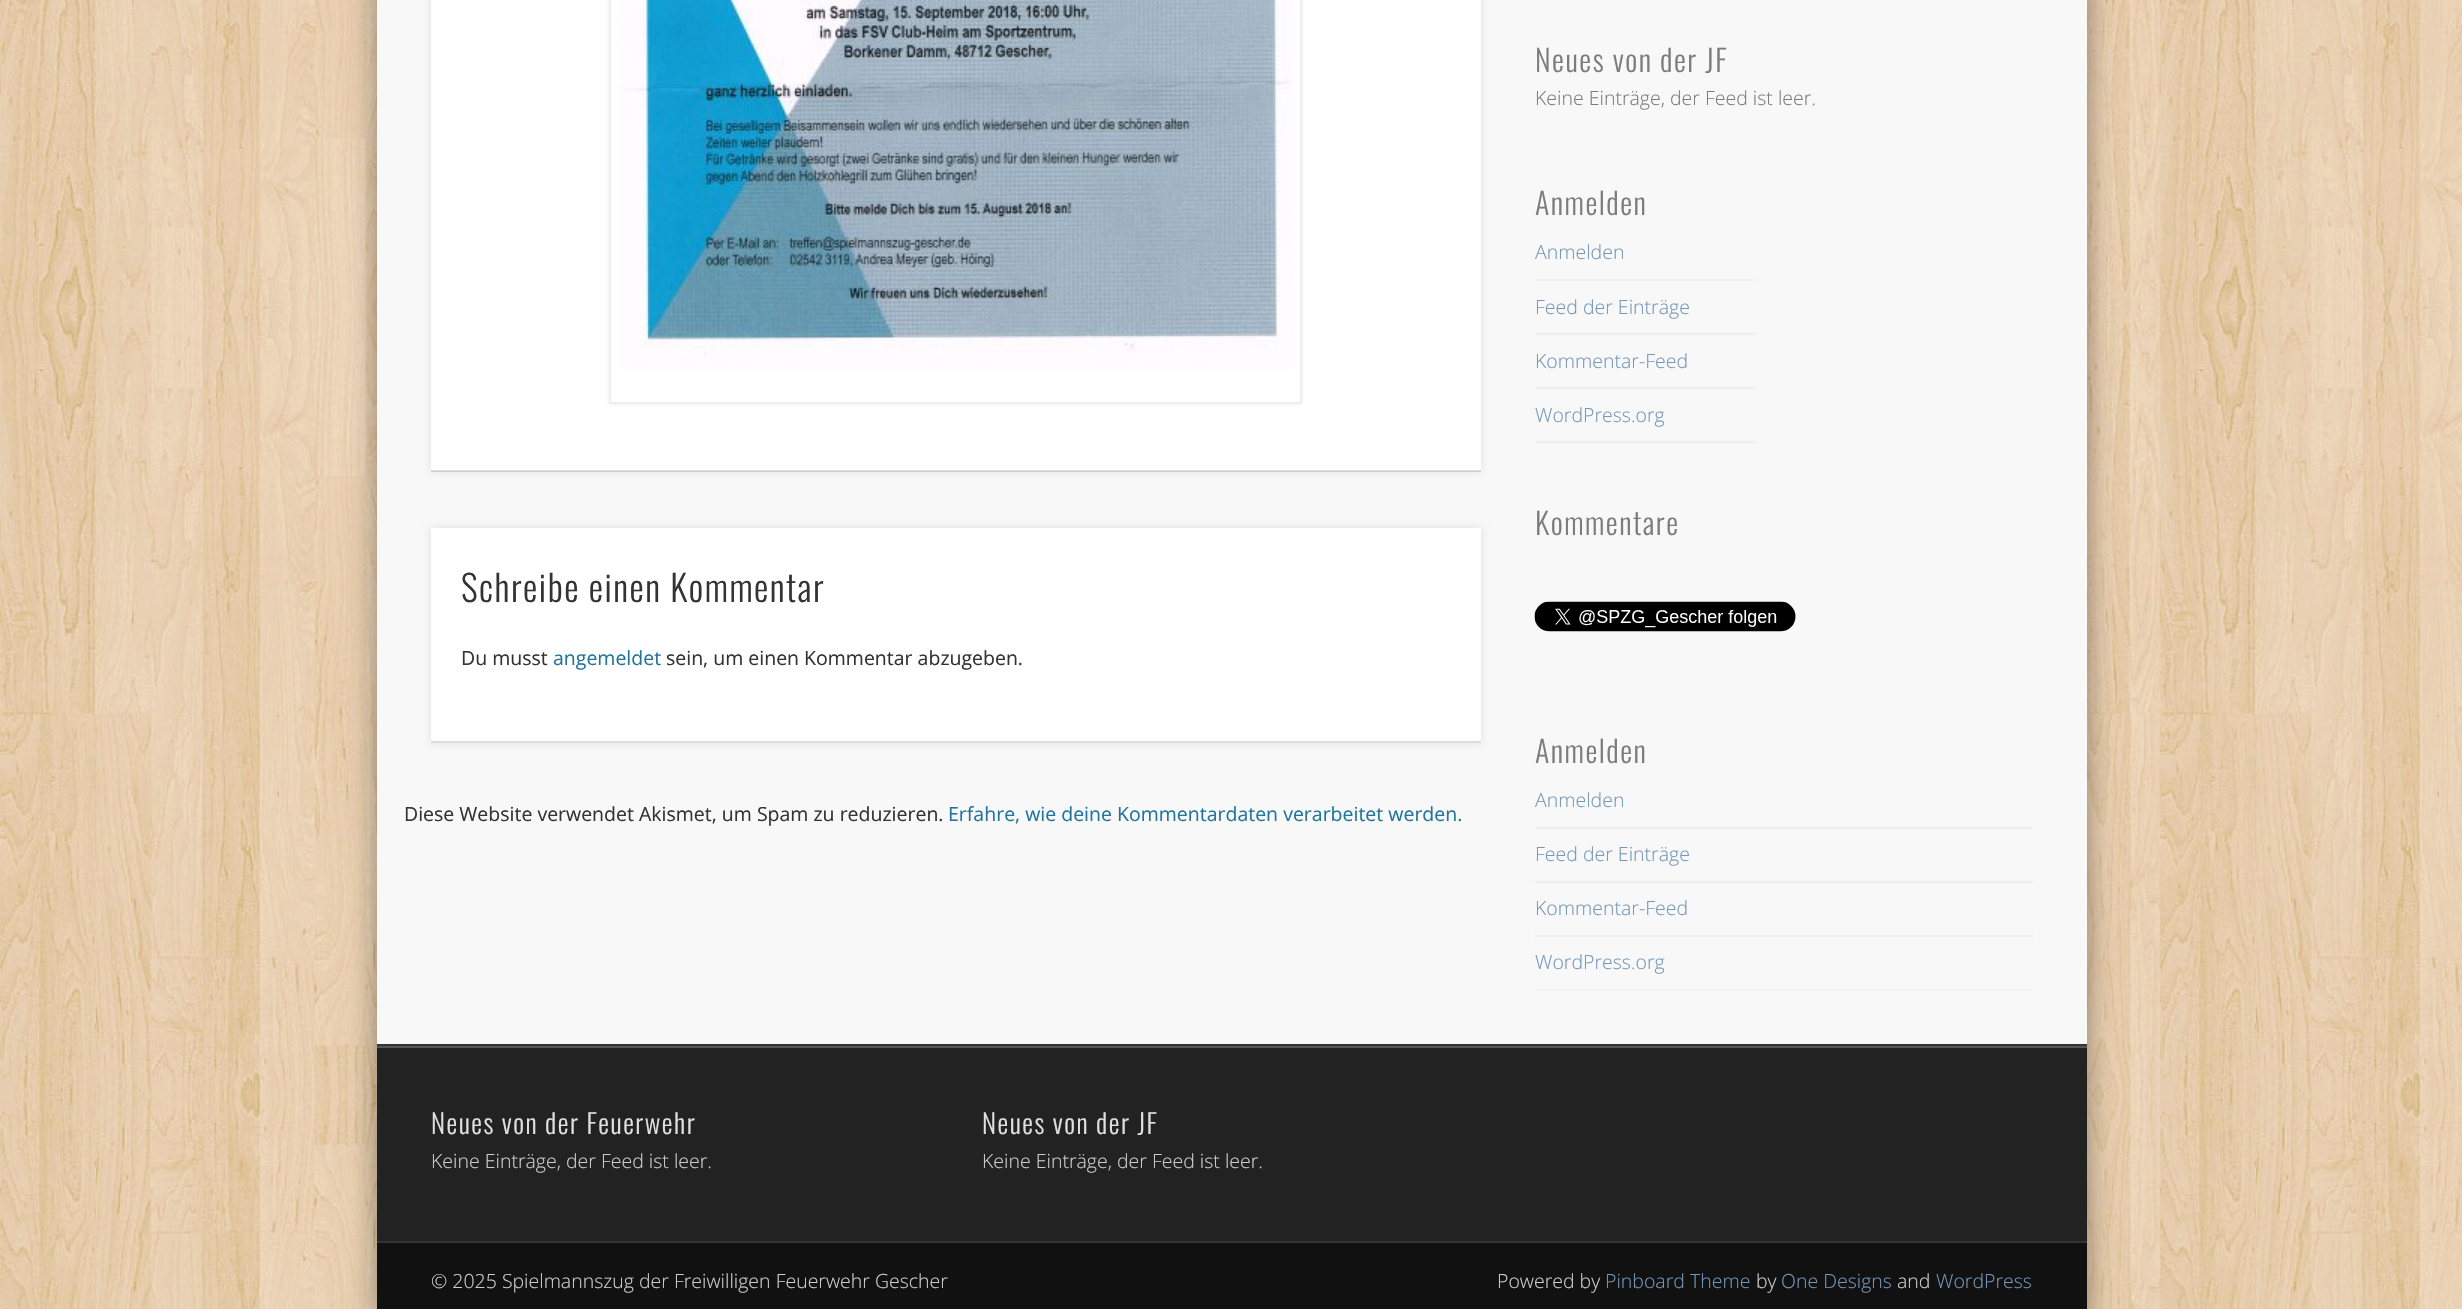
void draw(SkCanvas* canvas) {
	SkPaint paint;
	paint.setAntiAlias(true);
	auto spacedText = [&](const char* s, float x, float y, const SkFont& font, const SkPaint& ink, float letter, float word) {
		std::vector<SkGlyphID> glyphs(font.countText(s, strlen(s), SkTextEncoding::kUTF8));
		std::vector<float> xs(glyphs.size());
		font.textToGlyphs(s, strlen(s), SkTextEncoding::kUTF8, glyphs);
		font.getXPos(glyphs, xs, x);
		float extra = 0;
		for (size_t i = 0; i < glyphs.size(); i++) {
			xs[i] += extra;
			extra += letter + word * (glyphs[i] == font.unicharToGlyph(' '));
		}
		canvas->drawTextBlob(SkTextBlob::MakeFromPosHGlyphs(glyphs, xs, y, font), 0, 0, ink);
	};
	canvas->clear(0xffffffff);
	canvas->drawImageRect(SkImages::DeferredFromEncodedData(SkData::MakeFromFileName("img1.png")), SkRect::MakeXYWH(0, 0, 2462, 1309), SkSamplingOptions());
	paint.setColor(0x66000000);
	paint.setMaskFilter(SkMaskFilter::MakeBlur(kNormal_SkBlurStyle, 13.5));
	canvas->drawRect(SkRect::MakeXYWH(377, -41, 1710, 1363), paint);
	paint.setMaskFilter(nullptr);
	paint.setColor(0xfff8f8f8);
	canvas->drawRect(SkRect::MakeXYWH(377, 0, 1710, 1044), paint);
	paint.setColor(0x1a000000);
	paint.setMaskFilter(SkMaskFilter::MakeBlur(kNormal_SkBlurStyle, 4));
	canvas->drawRect(SkRect::MakeXYWH(431, -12, 1050, 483), paint);
	paint.setMaskFilter(nullptr);
	paint.setColor(0xffffffff);
	canvas->drawRect(SkRect::MakeXYWH(431, 0, 1050, 471), paint);
	paint.setColor(0x21000000);
	canvas->drawRect(SkRect::MakeXYWH(431, 470, 1050, 2), paint);
	paint.setColor(0xffeeeeee);
	paint.setMaskFilter(SkMaskFilter::MakeBlur(kNormal_SkBlurStyle, 2));
	canvas->drawRect(SkRect::MakeXYWH(609, -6, 693, 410), paint);
	paint.setMaskFilter(nullptr);
	paint.setColor(0xffffffff);
	canvas->drawRect(SkRect::MakeXYWH(610, -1, 691, 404), paint);
	paint.setStroke(true);
	paint.setStrokeWidth(2);
	paint.setColor(0xffeeeeee);
	canvas->drawRect(SkRect::MakeXYWH(610, -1, 691, 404), paint);
	canvas->drawImageRect(SkImages::DeferredFromEncodedData(SkData::MakeFromFileName("img2.png")), SkRect::MakeXYWH(619, 0, 674, 370), SkSamplingOptions());
	paint.setStroke(false);
	paint.setColor(0x1a000000);
	paint.setMaskFilter(SkMaskFilter::MakeBlur(kNormal_SkBlurStyle, 4));
	canvas->drawRect(SkRect::MakeXYWH(431, 528, 1050, 215), paint);
	paint.setMaskFilter(nullptr);
	paint.setColor(0xffffffff);
	canvas->drawRect(SkRect::MakeXYWH(431, 528, 1050, 213), paint);
	paint.setColor(0xffdedede);
	canvas->drawRect(SkRect::MakeXYWH(431, 741, 1050, 2), paint);
	SkFont f1(fontMgr->matchFamilyStyle("Oswald", SkFontStyle(300, SkFontStyle::kNormal_Width, SkFontStyle::kUpright_Slant)), 36);
	f1.setSubpixel(true);
	paint.setColor(0xff333333);
	spacedText("Schreibe einen Kommentar", 461, 602, f1, paint, 1.5, 0);
	SkFont f2(fontMgr->matchFamilyStyle("Open Sans", SkFontStyle::Normal()), 19.5);
	f2.setSubpixel(true);
	canvas->drawString("Du musst", 461, 665, f2, paint);
	paint.setColor(0xff21759b);
	canvas->drawString("angemeldet", 553, 665, f2, paint);
	paint.setColor(0xff333333);
	canvas->drawString("sein, um einen Kommentar abzugeben.", 666, 665, f2, paint);
	canvas->drawString("Diese Website verwendet Akismet, um Spam zu reduzieren.", 404, 821, f2, paint);
	paint.setColor(0xff21759b);
	canvas->drawString("Erfahre, wie deine Kommentardaten verarbeitet werden.", 948, 821, f2, paint);
	SkFont f3(fontMgr->matchFamilyStyle("Oswald", SkFontStyle(300, SkFontStyle::kNormal_Width, SkFontStyle::kUpright_Slant)), 30);
	f3.setSubpixel(true);
	paint.setColor(0xff7c7c7c);
	spacedText("Neues von der JF", 1535, 72, f3, paint, 1.5, 0);
	SkFont f4(fontMgr->matchFamilyStyle("Open Sans", SkFontStyle(300, SkFontStyle::kNormal_Width, SkFontStyle::kUpright_Slant)), 19.5);
	f4.setSubpixel(true);
	canvas->drawString("Keine Einträge, der Feed ist leer.", 1535, 105, f4, paint);
	spacedText("Anmelden", 1535, 215, f3, paint, 1.5, 0);
	paint.setColor(0xffeeeeee);
	canvas->drawRect(SkRect::MakeXYWH(1536, 279, 219, 2), paint);
	paint.setColor(0xff7597b9);
	canvas->drawString("Anmelden", 1535, 259, f4, paint);
	paint.setColor(0xffeeeeee);
	canvas->drawRect(SkRect::MakeXYWH(1536, 333, 219, 2), paint);
	paint.setColor(0xff7597b9);
	canvas->drawString("Feed der Einträge", 1535, 314, f4, paint);
	paint.setColor(0xffeeeeee);
	canvas->drawRect(SkRect::MakeXYWH(1536, 387, 219, 2), paint);
	paint.setColor(0xff7597b9);
	canvas->drawString("Kommentar-Feed", 1535, 368, f4, paint);
	paint.setColor(0xffeeeeee);
	canvas->drawRect(SkRect::MakeXYWH(1536, 441, 219, 2), paint);
	paint.setColor(0xff7597b9);
	canvas->drawString("WordPress.org", 1535, 422, f4, paint);
	paint.setColor(0xff7c7c7c);
	spacedText("Kommentare", 1535, 535, f3, paint, 1.5, 0);
	canvas->drawImageRect(SkImages::DeferredFromEncodedData(SkData::MakeFromFileName("img3.png")), SkRect::MakeXYWH(1534, 601, 262, 31), SkSamplingOptions());
	spacedText("Anmelden", 1535, 763, f3, paint, 1.5, 0);
	paint.setColor(0xffeeeeee);
	canvas->drawRect(SkRect::MakeXYWH(1535, 827, 498, 2), paint);
	paint.setColor(0xff7597b9);
	canvas->drawString("Anmelden", 1535, 807, f4, paint);
	paint.setColor(0xffeeeeee);
	canvas->drawRect(SkRect::MakeXYWH(1535, 881, 498, 2), paint);
	paint.setColor(0xff7597b9);
	canvas->drawString("Feed der Einträge", 1535, 861, f4, paint);
	paint.setColor(0xffeeeeee);
	canvas->drawRect(SkRect::MakeXYWH(1535, 935, 498, 2), paint);
	paint.setColor(0xff7597b9);
	canvas->drawString("Kommentar-Feed", 1535, 915, f4, paint);
	paint.setColor(0xffeeeeee);
	canvas->drawRect(SkRect::MakeXYWH(1535, 989, 498, 1), paint);
	paint.setColor(0xff7597b9);
	canvas->drawString("WordPress.org", 1535, 969, f4, paint);
	paint.setColor(0xff343434);
	canvas->drawRect(SkRect::MakeXYWH(377, 1044, 1710, 2), paint);
	paint.setColor(0xff222222);
	canvas->drawRect(SkRect::MakeXYWH(377, 1048, 1710, 193), paint);
	paint.setColor(0xff565656);
	canvas->drawRect(SkRect::MakeXYWH(377, 1046, 1710, 2), paint);
	SkFont f5(fontMgr->matchFamilyStyle("Oswald", SkFontStyle(300, SkFontStyle::kNormal_Width, SkFontStyle::kUpright_Slant)), 27);
	f5.setSubpixel(true);
	paint.setColor(0xffe0e0e0);
	spacedText("Neues von der Feuerwehr", 431, 1134, f5, paint, 1.5, 0);
	paint.setColor(0xffcccccc);
	canvas->drawString("Keine Einträge, der Feed ist leer.", 431, 1168, f4, paint);
	paint.setColor(0xffe0e0e0);
	spacedText("Neues von der JF", 982, 1134, f5, paint, 1.5, 0);
	paint.setColor(0xffcccccc);
	canvas->drawString("Keine Einträge, der Feed ist leer.", 982, 1168, f4, paint);
	paint.setColor(0xff111111);
	canvas->drawRect(SkRect::MakeXYWH(377, 1243, 1710, 66), paint);
	paint.setColor(0xff343434);
	canvas->drawRect(SkRect::MakeXYWH(377, 1241, 1710, 2), paint);
	paint.setColor(0xffcccccc);
	canvas->drawString("© 2025 Spielmannszug der Freiwilligen Feuerwehr Gescher", 431, 1288, f4, paint);
	canvas->drawString("Powered by", 1497, 1288, f4, paint);
	paint.setColor(0xff7597b9);
	canvas->drawString("Pinboard Theme", 1605, 1288, f4, paint);
	paint.setColor(0xffcccccc);
	canvas->drawString("by", 1756, 1288, f4, paint);
	paint.setColor(0xff7597b9);
	canvas->drawString("One Designs", 1781, 1288, f4, paint);
	paint.setColor(0xffcccccc);
	canvas->drawString("and", 1897, 1288, f4, paint);
	paint.setColor(0xff7597b9);
	canvas->drawString("WordPress", 1936, 1288, f4, paint);
}
